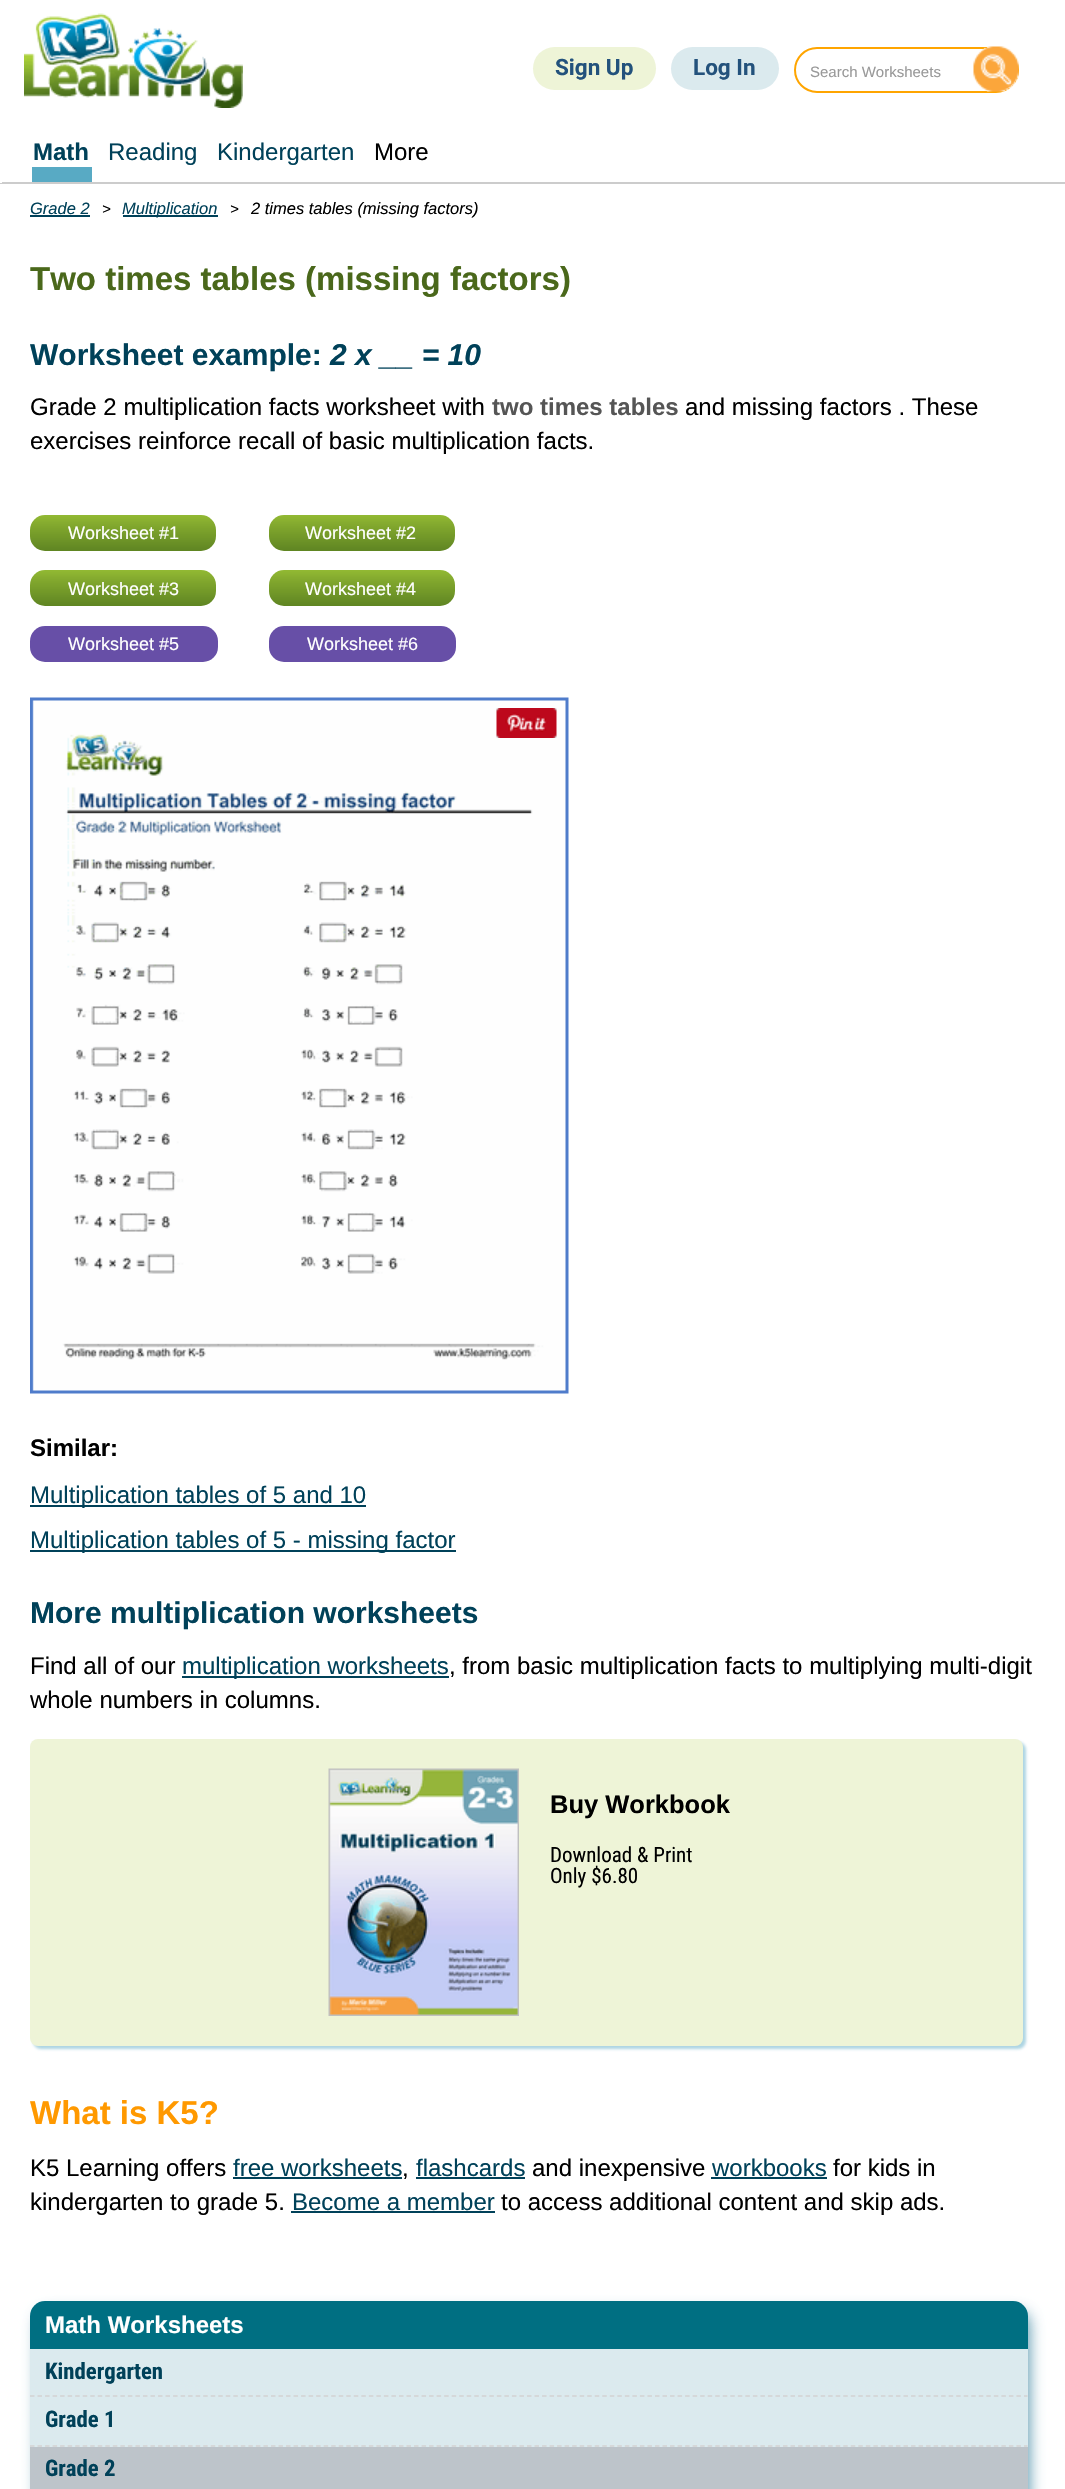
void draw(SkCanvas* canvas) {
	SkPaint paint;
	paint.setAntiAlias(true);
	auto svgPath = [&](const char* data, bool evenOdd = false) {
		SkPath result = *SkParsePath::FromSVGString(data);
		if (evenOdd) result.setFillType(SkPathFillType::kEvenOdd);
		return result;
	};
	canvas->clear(0xffffffff);
	paint.setColor(0xffcccccc);
	canvas->drawRect(SkRect::MakeXYWH(0, 182, 1065, 2), paint);
	paint.setColor(0xffffffff);
	canvas->drawRect(SkRect::MakeXYWH(0, 182, 2, 1), paint);
	canvas->drawImageRect(SkImages::DeferredFromEncodedData(SkData::MakeFromFileName("img1.png")), SkRect::MakeXYWH(24, 13, 219, 95), SkSamplingOptions());
	paint.setColor(0xffeef4d7);
	canvas->drawRoundRect(SkRect::MakeXYWH(533, 47, 123, 43), 21.5, 21.5, paint);
	SkFont f1(fontMgr->matchFamilyStyle("Roboto", SkFontStyle::Bold()), 22.5);
	f1.setSubpixel(true);
	paint.setColor(0xff23527c);
	canvas->drawString("Sign Up", 555, 75, f1, paint);
	paint.setColor(0xffdbeaee);
	canvas->drawRoundRect(SkRect::MakeXYWH(671, 47, 108, 43), 21.5, 21.5, paint);
	paint.setColor(0xff23527c);
	canvas->drawString("Log In", 693, 75, f1, paint);
	paint.setStroke(true);
	paint.setStrokeWidth(2);
	paint.setColor(0xffffa500);
	canvas->drawRoundRect(SkRect::MakeXYWH(795, 48, 223, 44), 22, 22, paint);
	SkFont f2(fontMgr->matchFamilyStyle("Liberation Sans", SkFontStyle::Normal()), 15);
	f2.setSubpixel(true);
	paint.setStroke(false);
	paint.setColor(0xff999999);
	canvas->drawString("Search Worksheets", 810, 77, f2, paint);
	canvas->drawImageRect(SkImages::DeferredFromEncodedData(SkData::MakeFromFileName("img2.png")), SkRect::MakeXYWH(973, 46, 46, 46), SkSamplingOptions());
	paint.setColor(0xff58aac4);
	canvas->drawRect(SkRect::MakeXYWH(32, 167, 60, 15), paint);
	SkFont f3(fontMgr->matchFamilyStyle("Liberation Sans", SkFontStyle::Bold()), 24);
	f3.setSubpixel(true);
	paint.setColor(0xff004159);
	canvas->drawString("Math", 33, 160, f3, paint);
	SkFont f4(fontMgr->matchFamilyStyle("Liberation Sans", SkFontStyle::Normal()), 24);
	f4.setSubpixel(true);
	canvas->drawString("Reading", 108, 160, f4, paint);
	canvas->drawString("Kindergarten", 217, 160, f4, paint);
	paint.setColor(0xff000000);
	canvas->drawString("More", 374, 160, f4, paint);
	SkFont f5(fontMgr->matchFamilyStyle("Liberation Sans", SkFontStyle::Italic()), 16.5);
	f5.setSubpixel(true);
	paint.setColor(0xff004159);
	canvas->drawString("Grade 2", 30, 214, f5, paint);
	canvas->drawRect(SkRect::MakeXYWH(30, 215, 60, 2), paint);
	SkFont f6(fontMgr->matchFamilyStyle("Liberation Sans", SkFontStyle::Italic()), 15);
	f6.setSubpixel(true);
	paint.setColor(0xff000000);
	canvas->drawString(">", 102, 214, f6, paint);
	paint.setColor(0xff004159);
	canvas->drawRect(SkRect::MakeXYWH(123, 215, 95, 2), paint);
	canvas->drawString("Multiplication", 122, 214, f5, paint);
	paint.setColor(0xff000000);
	canvas->drawString(">", 230, 214, f6, paint);
	canvas->drawString("2 times tables (missing factors)", 251, 214, f5, paint);
	SkFont f7(fontMgr->matchFamilyStyle("Liberation Sans", SkFontStyle::Bold()), 33);
	f7.setSubpixel(true);
	paint.setColor(0xff4a681b);
	canvas->drawString("Two times tables (missing factors)", 30, 290, f7, paint);
	SkFont f8(fontMgr->matchFamilyStyle("Liberation Sans", SkFontStyle::Bold()), 30);
	f8.setSubpixel(true);
	paint.setColor(0xff004159);
	canvas->drawString("Worksheet example:", 30, 365, f8, paint);
	SkFont f9(fontMgr->matchFamilyStyle("Liberation Sans", SkFontStyle::BoldItalic()), 30);
	f9.setSubpixel(true);
	canvas->drawString("2 x __ = 10", 330, 365, f9, paint);
	paint.setColor(0xff000000);
	canvas->drawString("Grade 2 multiplication facts worksheet with", 30, 415, f4, paint);
	paint.setColor(0xff555555);
	canvas->drawString("two times tables", 492, 415, f3, paint);
	paint.setColor(0xff000000);
	canvas->drawString("and missing factors . These", 685, 415, f4, paint);
	canvas->drawString("exercises reinforce recall of basic multiplication facts.", 30, 449, f4, paint);
	{
		const SkColor colors[] = {0xff5f8522, 0xff638924, 0xff688e25, 0xff6c9227, 0xff719728, 0xff759b29, 0xff7aa02b, 0xff7ea42c, 0xff83a92e, 0xff88ae30, 0xff8db431, 0xff92b933};
		const float stops[] = {0, 0.09, 0.18, 0.27, 0.36, 0.45, 0.55, 0.64, 0.73, 0.82, 0.91, 1};
		const SkPoint ends[] = {{123, 551}, {123, 515}};
		paint.setShader(SkGradientShader::MakeLinear(ends, colors, stops, 12, SkTileMode::kClamp));
		paint.setAlpha(255);
	}
	canvas->drawRoundRect(SkRect::MakeXYWH(30, 515, 186, 36), 15, 15, paint);
	SkFont f10(fontMgr->matchFamilyStyle("Liberation Sans", SkFontStyle::Normal()), 18);
	f10.setSubpixel(true);
	paint.setShader(nullptr);
	paint.setColor(0xffffffff);
	canvas->drawString("Worksheet #1", 68, 539, f10, paint);
	{
		const SkColor colors[] = {0xff5f8522, 0xff638924, 0xff688e25, 0xff6c9227, 0xff719728, 0xff759b29, 0xff7aa02b, 0xff7ea42c, 0xff83a92e, 0xff88ae30, 0xff8db431, 0xff92b933};
		const float stops[] = {0, 0.09, 0.18, 0.27, 0.36, 0.45, 0.55, 0.64, 0.73, 0.82, 0.91, 1};
		const SkPoint ends[] = {{362, 551}, {362, 515}};
		paint.setShader(SkGradientShader::MakeLinear(ends, colors, stops, 12, SkTileMode::kClamp));
		paint.setAlpha(255);
	}
	canvas->drawRoundRect(SkRect::MakeXYWH(269, 515, 186, 36), 15, 15, paint);
	paint.setShader(nullptr);
	paint.setColor(0xffffffff);
	canvas->drawString("Worksheet #2", 305, 539, f10, paint);
	{
		const SkColor colors[] = {0xff5f8522, 0xff638924, 0xff688e25, 0xff6c9227, 0xff719728, 0xff759b29, 0xff7aa02b, 0xff7ea42c, 0xff83a92e, 0xff88ae30, 0xff8db431, 0xff92b933};
		const float stops[] = {0, 0.09, 0.18, 0.27, 0.36, 0.45, 0.55, 0.64, 0.73, 0.82, 0.91, 1};
		const SkPoint ends[] = {{123, 606}, {123, 570}};
		paint.setShader(SkGradientShader::MakeLinear(ends, colors, stops, 12, SkTileMode::kClamp));
		paint.setAlpha(255);
	}
	canvas->drawRoundRect(SkRect::MakeXYWH(30, 570, 186, 36), 15, 15, paint);
	paint.setShader(nullptr);
	paint.setColor(0xffffffff);
	canvas->drawString("Worksheet #3", 68, 595, f10, paint);
	{
		const SkColor colors[] = {0xff5f8522, 0xff638924, 0xff688e25, 0xff6c9227, 0xff719728, 0xff759b29, 0xff7aa02b, 0xff7ea42c, 0xff83a92e, 0xff88ae30, 0xff8db431, 0xff92b933};
		const float stops[] = {0, 0.09, 0.18, 0.27, 0.36, 0.45, 0.55, 0.64, 0.73, 0.82, 0.91, 1};
		const SkPoint ends[] = {{362, 606}, {362, 570}};
		paint.setShader(SkGradientShader::MakeLinear(ends, colors, stops, 12, SkTileMode::kClamp));
		paint.setAlpha(255);
	}
	canvas->drawRoundRect(SkRect::MakeXYWH(269, 570, 186, 36), 15, 15, paint);
	paint.setShader(nullptr);
	paint.setColor(0xffffffff);
	canvas->drawString("Worksheet #4", 305, 595, f10, paint);
	paint.setColor(0xff674fa7);
	canvas->drawRoundRect(SkRect::MakeXYWH(30, 626, 188, 36), 15, 15, paint);
	paint.setColor(0xffffffff);
	canvas->drawString("Worksheet #5", 68, 650, f10, paint);
	paint.setColor(0xff674fa7);
	canvas->drawRoundRect(SkRect::MakeXYWH(269, 626, 187, 36), 15, 15, paint);
	paint.setColor(0xffffffff);
	canvas->drawString("Worksheet #6", 307, 650, f10, paint);
	canvas->drawImageRect(SkImages::DeferredFromEncodedData(SkData::MakeFromFileName("img3.png")), SkRect::MakeXYWH(30, 697, 539, 697), SkSamplingOptions());
	canvas->drawImageRect(SkImages::DeferredFromEncodedData(SkData::MakeFromFileName("img4.png")), SkRect::MakeXYWH(496, 708, 61, 30), SkSamplingOptions());
	paint.setColor(0xff000000);
	canvas->drawString("Similar:", 30, 1456, f3, paint);
	paint.setColor(0xff004159);
	canvas->drawRect(SkRect::MakeXYWH(30, 1505, 336, 2), paint);
	canvas->drawString("Multiplication tables of 5 and 10", 30, 1503, f4, paint);
	canvas->drawRect(SkRect::MakeXYWH(30, 1550, 426, 2), paint);
	canvas->drawString("Multiplication tables of 5 - missing factor", 30, 1548, f4, paint);
	canvas->drawString("More multiplication worksheets", 30, 1623, f8, paint);
	paint.setColor(0xff000000);
	canvas->drawString("Find all of our", 30, 1674, f4, paint);
	paint.setColor(0xff004159);
	canvas->drawRect(SkRect::MakeXYWH(182, 1676, 267, 2), paint);
	canvas->drawString("multiplication worksheets", 182, 1674, f4, paint);
	paint.setColor(0xff000000);
	canvas->drawString(", from basic multiplication facts to multiplying multi-digit", 449, 1674, f4, paint);
	canvas->drawString("whole numbers in columns.", 30, 1708, f4, paint);
	paint.setColor(0x8059aac5);
	paint.setMaskFilter(SkMaskFilter::MakeBlur(kNormal_SkBlurStyle, 1.5));
	canvas->drawRoundRect(SkRect::MakeXYWH(33, 1742, 993, 307), 8, 8, paint);
	paint.setMaskFilter(nullptr);
	paint.setColor(0xffeef4d7);
	canvas->drawRoundRect(SkRect::MakeXYWH(30, 1739, 993, 307), 8, 8, paint);
	canvas->drawImageRect(SkImages::DeferredFromEncodedData(SkData::MakeFromFileName("img5.png")), SkRect::MakeXYWH(328, 1768, 191, 248), SkSamplingOptions());
	SkFont f11(fontMgr->matchFamilyStyle("Liberation Sans", SkFontStyle::Bold()), 25.5);
	f11.setSubpixel(true);
	paint.setColor(0xff000000);
	canvas->drawString("Buy Workbook", 550, 1813, f11, paint);
	SkFont f12(fontMgr->matchFamilyStyle("Roboto Condensed", SkFontStyle::Normal()), 21);
	f12.setSubpixel(true);
	canvas->drawString("Download & Print", 550, 1862, f12, paint);
	canvas->drawString("Only $6.80", 550, 1883, f12, paint);
	paint.setColor(0xffff9900);
	canvas->drawString("What is K5?", 30, 2124, f7, paint);
	paint.setColor(0xff000000);
	canvas->drawString("K5 Learning offers", 30, 2176, f4, paint);
	paint.setColor(0xff004159);
	canvas->drawString("free worksheets", 233, 2176, f4, paint);
	canvas->drawRect(SkRect::MakeXYWH(233, 2177, 169, 2), paint);
	paint.setColor(0xff000000);
	canvas->drawString(",", 402, 2176, f4, paint);
	paint.setColor(0xff004159);
	canvas->drawString("flashcards", 416, 2176, f4, paint);
	canvas->drawRect(SkRect::MakeXYWH(416, 2177, 109, 2), paint);
	paint.setColor(0xff000000);
	canvas->drawString("and inexpensive", 532, 2176, f4, paint);
	paint.setColor(0xff004159);
	canvas->drawString("workbooks", 712, 2176, f4, paint);
	canvas->drawRect(SkRect::MakeXYWH(711, 2177, 116, 2), paint);
	paint.setColor(0xff000000);
	canvas->drawString("for kids in", 833, 2176, f4, paint);
	canvas->drawString("kindergarten to grade 5.", 30, 2210, f4, paint);
	paint.setColor(0xff004159);
	canvas->drawString("Become a member", 292, 2210, f4, paint);
	canvas->drawRect(SkRect::MakeXYWH(291, 2211, 204, 2), paint);
	paint.setColor(0xff000000);
	canvas->drawString("to access additional content and skip ads.", 501, 2210, f4, paint);
	paint.setColor(0xad005f82);
	paint.setMaskFilter(SkMaskFilter::MakeBlur(kNormal_SkBlurStyle, 7.5));
	canvas->drawRoundRect(SkRect::MakeXYWH(38, 2312, 991, 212), 12, 12, paint);
	paint.setMaskFilter(nullptr);
	paint.setColor(0xff006f82);
	canvas->drawRoundRect(SkRect::MakeXYWH(30, 2301, 998, 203), 15, 15, paint);
	paint.setColor(0xffffffff);
	canvas->drawString("Math Worksheets", 45, 2333, f3, paint);
	paint.setColor(0xffdbeaee);
	canvas->drawRect(SkRect::MakeXYWH(30, 2349, 998, 98), paint);
	paint.setStroke(true);
	paint.setStrokeWidth(1.5);
	paint.setColor(0xffd3d3d3);
	paint.setPathEffect(SkDashPathEffect::Make({{4.5f, 3.03f}}, 0));
	canvas->drawPath(svgPath("M30 2396H1027.5"), paint);
	paint.setPathEffect(nullptr);
	SkFont f13(fontMgr->matchFamilyStyle("Roboto Condensed", SkFontStyle::Bold()), 22.75);
	f13.setSubpixel(true);
	paint.setStroke(false);
	paint.setColor(0xff004159);
	canvas->drawString("Kindergarten", 45, 2379, f13, paint);
	paint.setStroke(true);
	paint.setColor(0xffd3d3d3);
	paint.setPathEffect(SkDashPathEffect::Make({{4.5f, 3.03f}}, 0));
	canvas->drawPath(svgPath("M30 2446H1027.5"), paint);
	paint.setPathEffect(nullptr);
	paint.setStroke(false);
	paint.setColor(0xff004159);
	canvas->drawString("Grade 1", 45, 2427, f13, paint);
	paint.setColor(0xffbdc4ca);
	canvas->drawRect(SkRect::MakeXYWH(30, 2447, 998, 42), paint);
	paint.setColor(0xff004159);
	canvas->drawString("Grade 2", 45, 2476, f13, paint);
}
